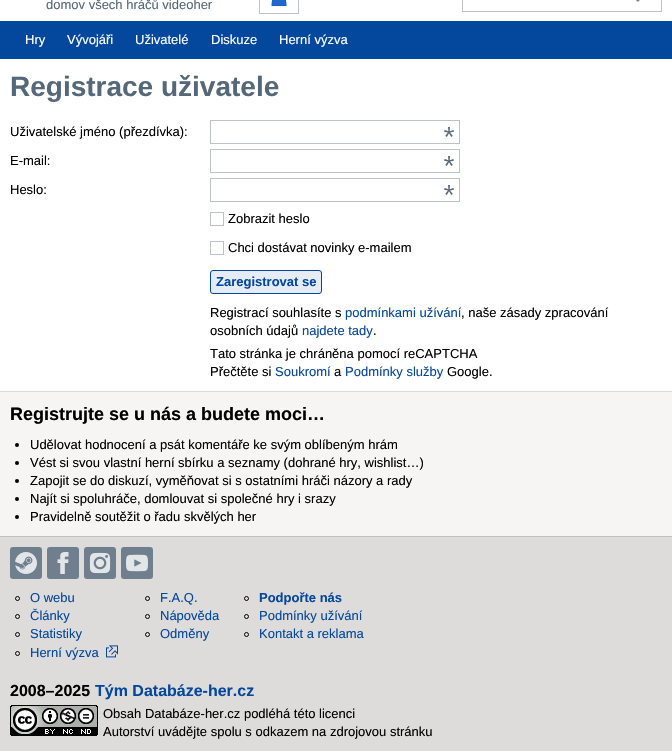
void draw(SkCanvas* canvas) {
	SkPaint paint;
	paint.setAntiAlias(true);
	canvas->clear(0xfff7f5f4);
	paint.setColor(0xffffffff);
	canvas->drawRect(SkRect::MakeXYWH(0, 0, 672, 21), paint);
	SkFont f1(fontMgr->matchFamilyStyle("Liberation Sans", SkFontStyle::Normal()), 13);
	f1.setSubpixel(true);
	paint.setColor(0xff556879);
	canvas->drawString("domov všech hráčů videoher", 46, 9, f1, paint);
	paint.setStroke(true);
	paint.setStrokeWidth(1);
	paint.setColor(0xffbbc2c9);
	canvas->drawRect(SkRect::MakeXYWH(259.5, -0.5, 39, 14), paint);
	canvas->drawImageRect(SkImages::DeferredFromEncodedData(SkData::MakeFromFileName("img1.png")), SkRect::MakeXYWH(271, 0, 16, 7), SkSamplingOptions());
	canvas->drawRect(SkRect::MakeXYWH(462.5, -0.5, 199, 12), paint);
	canvas->drawImageRect(SkImages::DeferredFromEncodedData(SkData::MakeFromFileName("img2.png")), SkRect::MakeXYWH(636, 0, 4, 2), SkSamplingOptions());
	paint.setStroke(false);
	paint.setColor(0xff04489e);
	canvas->drawRect(SkRect::MakeXYWH(0, 21, 672, 38), paint);
	paint.setColor(0xffffffff);
	canvas->drawString("Hry", 25, 44, f1, paint);
	canvas->drawString("Vývojáři", 67, 44, f1, paint);
	canvas->drawString("Uživatelé", 135, 44, f1, paint);
	canvas->drawString("Diskuze", 211, 44, f1, paint);
	canvas->drawString("Herní výzva", 279, 44, f1, paint);
	canvas->drawRect(SkRect::MakeXYWH(0, 59, 672, 332), paint);
	paint.setColor(0xffd9d9d9);
	canvas->drawRect(SkRect::MakeXYWH(0, 391, 672, 1), paint);
	SkFont f2(fontMgr->matchFamilyStyle("Liberation Sans", SkFontStyle::Bold()), 28);
	f2.setSubpixel(true);
	paint.setColor(0xff556879);
	canvas->drawString("Registrace uživatele", 10, 96, f2, paint);
	paint.setColor(0xff000000);
	canvas->drawString("Uživatelské jméno (přezdívka):", 10, 136, f1, paint);
	canvas->drawImageRect(SkImages::DeferredFromEncodedData(SkData::MakeFromFileName("img3.png")), SkRect::MakeXYWH(444, 127, 10, 10), SkSamplingOptions());
	paint.setStroke(true);
	paint.setColor(0xffbbc2c9);
	canvas->drawRect(SkRect::MakeXYWH(210.5, 120.5, 249, 23), paint);
	paint.setStroke(false);
	paint.setColor(0xff000000);
	canvas->drawString("E-mail:", 10, 165, f1, paint);
	canvas->drawImageRect(SkImages::DeferredFromEncodedData(SkData::MakeFromFileName("img3.png")), SkRect::MakeXYWH(444, 156, 10, 10), SkSamplingOptions());
	paint.setStroke(true);
	paint.setColor(0xffbbc2c9);
	canvas->drawRect(SkRect::MakeXYWH(210.5, 149.5, 249, 23), paint);
	paint.setStroke(false);
	paint.setColor(0xff000000);
	canvas->drawString("Heslo:", 10, 194, f1, paint);
	canvas->drawImageRect(SkImages::DeferredFromEncodedData(SkData::MakeFromFileName("img3.png")), SkRect::MakeXYWH(444, 185, 10, 10), SkSamplingOptions());
	paint.setStroke(true);
	paint.setColor(0xffbbc2c9);
	canvas->drawRect(SkRect::MakeXYWH(210.5, 178.5, 249, 23), paint);
	canvas->drawRect(SkRect::MakeXYWH(210.5, 212.5, 13, 13), paint);
	paint.setStroke(false);
	paint.setColor(0xff000000);
	canvas->drawString("Zobrazit heslo", 228, 223, f1, paint);
	paint.setStroke(true);
	paint.setColor(0xffbbc2c9);
	canvas->drawRect(SkRect::MakeXYWH(210.5, 241.5, 13, 13), paint);
	paint.setStroke(false);
	paint.setColor(0xff000000);
	canvas->drawString("Chci dostávat novinky e-mailem", 228, 252, f1, paint);
	paint.setColor(0xffe5ecf5);
	canvas->drawRoundRect(SkRect::MakeXYWH(210.5, 270.5, 111, 23), 2.5, 2.5, paint);
	paint.setStroke(true);
	paint.setColor(0xff04489e);
	canvas->drawRoundRect(SkRect::MakeXYWH(210.5, 270.5, 111, 23), 2.5, 2.5, paint);
	SkFont f3(fontMgr->matchFamilyStyle("Liberation Sans", SkFontStyle::Bold()), 13);
	f3.setSubpixel(true);
	paint.setStroke(false);
	canvas->drawString("Zaregistrovat se", 216, 286, f3, paint);
	paint.setColor(0xff000000);
	canvas->drawString("Registrací souhlasíte s", 210, 317, f1, paint);
	paint.setColor(0xff04489e);
	canvas->drawString("podmínkami užívání", 345, 317, f1, paint);
	paint.setColor(0xff000000);
	canvas->drawString(", naše zásady zpracování", 461, 317, f1, paint);
	canvas->drawString("osobních údajů", 210, 335, f1, paint);
	paint.setColor(0xff04489e);
	canvas->drawString("najdete tady", 302, 335, f1, paint);
	paint.setColor(0xff000000);
	canvas->drawString(".", 373, 335, f1, paint);
	canvas->drawString("Tato stránka je chráněna pomocí reCAPTCHA", 210, 358, f1, paint);
	canvas->drawString("Přečtěte si", 210, 376, f1, paint);
	paint.setColor(0xff04489e);
	canvas->drawString("Soukromí", 275, 376, f1, paint);
	paint.setColor(0xff000000);
	canvas->drawString("a", 334, 376, f1, paint);
	paint.setColor(0xff04489e);
	canvas->drawString("Podmínky služby", 345, 376, f1, paint);
	paint.setColor(0xff000000);
	canvas->drawString("Google.", 447, 376, f1, paint);
	SkFont f4(fontMgr->matchFamilyStyle("Liberation Sans", SkFontStyle::Bold()), 18);
	f4.setSubpixel(true);
	canvas->drawString("Registrujte se u nás a budete moci…", 10, 420, f4, paint);
	canvas->drawCircle(17, 445, 2, paint);
	canvas->drawString("Udělovat hodnocení a psát komentáře ke svým oblíbeným hrám", 30, 449, f1, paint);
	canvas->drawCircle(17, 463, 2, paint);
	canvas->drawString("Vést si svou vlastní herní sbírku a seznamy (dohrané hry, wishlist…)", 30, 467, f1, paint);
	canvas->drawCircle(17, 481, 2, paint);
	canvas->drawString("Zapojit se do diskuzí, vyměňovat si s ostatními hráči názory a rady", 30, 485, f1, paint);
	canvas->drawCircle(17, 499, 2, paint);
	canvas->drawString("Najít si spoluhráče, domlouvat si společné hry i srazy", 30, 503, f1, paint);
	canvas->drawCircle(17, 517, 2, paint);
	canvas->drawString("Pravidelně soutěžit o řadu skvělých her", 30, 521, f1, paint);
	paint.setColor(0xffdedcdb);
	canvas->drawRect(SkRect::MakeXYWH(0, 537, 672, 214), paint);
	paint.setColor(0xffbbc2c9);
	canvas->drawRect(SkRect::MakeXYWH(0, 536, 672, 1), paint);
	paint.setColor(0xff707f8d);
	canvas->drawRoundRect(SkRect::MakeXYWH(10, 547, 32, 32), 3, 3, paint);
	canvas->drawImageRect(SkImages::DeferredFromEncodedData(SkData::MakeFromFileName("img4.png")), SkRect::MakeXYWH(15, 552, 22, 22), SkSamplingOptions());
	canvas->drawRoundRect(SkRect::MakeXYWH(47, 547, 32, 32), 3, 3, paint);
	canvas->drawImageRect(SkImages::DeferredFromEncodedData(SkData::MakeFromFileName("img5.png")), SkRect::MakeXYWH(57, 552, 12, 22), SkSamplingOptions());
	canvas->drawRoundRect(SkRect::MakeXYWH(84, 547, 32, 32), 3, 3, paint);
	canvas->drawImageRect(SkImages::DeferredFromEncodedData(SkData::MakeFromFileName("img6.png")), SkRect::MakeXYWH(89, 552, 22, 22), SkSamplingOptions());
	canvas->drawRoundRect(SkRect::MakeXYWH(121, 547, 32, 32), 3, 3, paint);
	canvas->drawImageRect(SkImages::DeferredFromEncodedData(SkData::MakeFromFileName("img7.png")), SkRect::MakeXYWH(126, 554, 22, 18), SkSamplingOptions());
	paint.setStroke(true);
	paint.setColor(0xff000000);
	canvas->drawCircle(17.5, 598.5, 2, paint);
	paint.setStroke(false);
	paint.setColor(0xff04489e);
	canvas->drawString("O webu", 30, 602, f1, paint);
	paint.setStroke(true);
	paint.setColor(0xff000000);
	canvas->drawCircle(17.5, 616.5, 2, paint);
	paint.setStroke(false);
	paint.setColor(0xff04489e);
	canvas->drawString("Články", 30, 620, f1, paint);
	paint.setStroke(true);
	paint.setColor(0xff000000);
	canvas->drawCircle(17.5, 634.5, 2, paint);
	paint.setStroke(false);
	paint.setColor(0xff04489e);
	canvas->drawString("Statistiky", 30, 638, f1, paint);
	paint.setStroke(true);
	paint.setColor(0xff000000);
	canvas->drawCircle(17.5, 653.5, 2, paint);
	paint.setStroke(false);
	paint.setColor(0xff04489e);
	canvas->drawString("Herní výzva", 30, 657, f1, paint);
	canvas->drawImageRect(SkImages::DeferredFromEncodedData(SkData::MakeFromFileName("img8.png")), SkRect::MakeXYWH(106, 645, 12, 13), SkSamplingOptions());
	paint.setStroke(true);
	paint.setColor(0xff000000);
	canvas->drawCircle(147.5, 598.5, 2, paint);
	paint.setStroke(false);
	paint.setColor(0xff04489e);
	canvas->drawString("F.A.Q.", 160, 602, f1, paint);
	paint.setStroke(true);
	paint.setColor(0xff000000);
	canvas->drawCircle(147.5, 616.5, 2, paint);
	paint.setStroke(false);
	paint.setColor(0xff04489e);
	canvas->drawString("Nápověda", 160, 620, f1, paint);
	paint.setStroke(true);
	paint.setColor(0xff000000);
	canvas->drawCircle(147.5, 634.5, 2, paint);
	paint.setStroke(false);
	paint.setColor(0xff04489e);
	canvas->drawString("Odměny", 160, 638, f1, paint);
	paint.setStroke(true);
	paint.setColor(0xff000000);
	canvas->drawCircle(246.5, 598.5, 2, paint);
	paint.setStroke(false);
	paint.setColor(0xff04489e);
	canvas->drawString("Podpořte nás", 259, 602, f3, paint);
	paint.setStroke(true);
	paint.setColor(0xff000000);
	canvas->drawCircle(246.5, 616.5, 2, paint);
	paint.setStroke(false);
	paint.setColor(0xff04489e);
	canvas->drawString("Podmínky užívání", 259, 620, f1, paint);
	paint.setStroke(true);
	paint.setColor(0xff000000);
	canvas->drawCircle(246.5, 634.5, 2, paint);
	paint.setStroke(false);
	paint.setColor(0xff04489e);
	canvas->drawString("Kontakt a reklama", 259, 638, f1, paint);
	SkFont f5(fontMgr->matchFamilyStyle("Liberation Sans", SkFontStyle::Bold()), 16);
	f5.setSubpixel(true);
	paint.setColor(0xff000000);
	canvas->drawString("2008–2025", 10, 696, f5, paint);
	paint.setColor(0xff04489e);
	canvas->drawString("Tým Databáze-her.cz", 95, 696, f5, paint);
	canvas->drawImageRect(SkImages::DeferredFromEncodedData(SkData::MakeFromFileName("img9.png")), SkRect::MakeXYWH(10, 705, 88, 31), SkSamplingOptions());
	paint.setColor(0xff000000);
	canvas->drawString("Obsah Databáze-her.cz podléhá této licenci", 103, 718, f1, paint);
	canvas->drawString("Autorství uvádějte spolu s odkazem na zdrojovou stránku", 103, 736, f1, paint);
}
